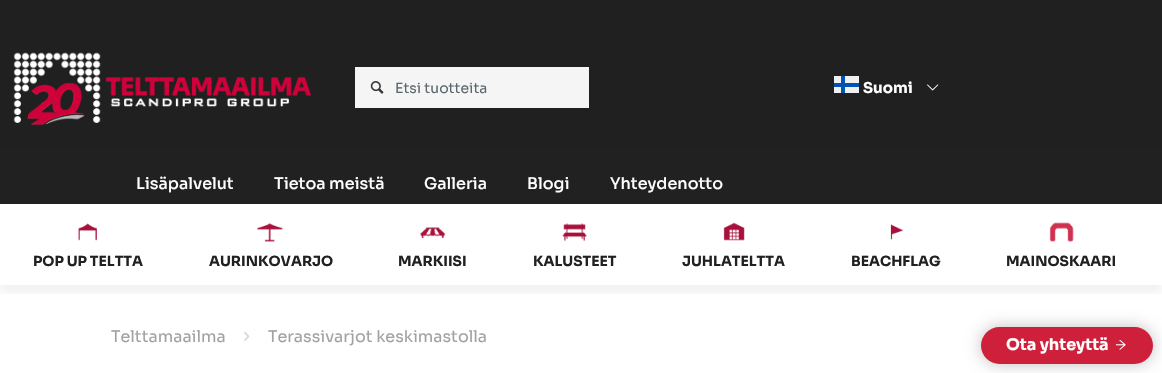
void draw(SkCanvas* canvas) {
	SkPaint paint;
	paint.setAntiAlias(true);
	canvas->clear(0xffffffff);
	paint.setColor(0xff202020);
	canvas->drawRect(SkRect::MakeXYWH(0, 0, 1162, 150), paint);
	canvas->drawImageRect(SkImages::DeferredFromEncodedData(SkData::MakeFromFileName("img1.png")), SkRect::MakeXYWH(13, 52, 298, 74), SkSamplingOptions());
	paint.setColor(0xfff5f5f5);
	canvas->drawRect(SkRect::MakeXYWH(355, 67, 234, 41), paint);
	canvas->drawImageRect(SkImages::DeferredFromEncodedData(SkData::MakeFromFileName("img2.png")), SkRect::MakeXYWH(370, 81, 14, 13), SkSamplingOptions());
	SkFont f1(fontMgr->matchFamilyStyle("Sora", SkFontStyle::Normal()), 14);
	f1.setSubpixel(true);
	paint.setColor(0xff5c676d);
	canvas->drawString("Etsi tuotteita", 395, 93, f1, paint);
	paint.setColor(0xfff0f0f0);
	canvas->drawRect(SkRect::MakeXYWH(834, 76, 25, 17), paint);
	paint.setColor(0xff0052b4);
	canvas->drawRect(SkRect::MakeXYWH(834, 83, 25, 4), paint);
	canvas->drawRect(SkRect::MakeXYWH(841, 76, 4, 17), paint);
	SkFont f2(fontMgr->matchFamilyStyle("Sora", SkFontStyle::Bold()), 15);
	f2.setSubpixel(true);
	paint.setColor(0xffffffff);
	canvas->drawString("Suomi", 863, 93, f2, paint);
	canvas->drawImageRect(SkImages::DeferredFromEncodedData(SkData::MakeFromFileName("img3.png")), SkRect::MakeXYWH(927, 84, 12, 7), SkSamplingOptions());
	paint.setColor(0xff212121);
	canvas->drawRect(SkRect::MakeXYWH(0, 150, 1162, 54), paint);
	SkFont f3(fontMgr->matchFamilyStyle("Sora", SkFontStyle(500, SkFontStyle::kNormal_Width, SkFontStyle::kUpright_Slant)), 16);
	f3.setSubpixel(true);
	paint.setColor(0xffffffff);
	canvas->drawString("Lisäpalvelut", 136, 189, f3, paint);
	canvas->drawString("Tietoa meistä", 274, 189, f3, paint);
	canvas->drawString("Galleria", 424, 189, f3, paint);
	canvas->drawString("Blogi", 527, 189, f3, paint);
	canvas->drawString("Yhteydenotto", 610, 189, f3, paint);
	canvas->save();
	canvas->clipRect(SkRect::MakeXYWH(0, 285, 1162, 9));
	paint.setColor(0x0d000000);
	paint.setMaskFilter(SkMaskFilter::MakeBlur(kNormal_SkBlurStyle, 4));
	canvas->drawRect(SkRect::MakeXYWH(0, 212, 1162, 81), paint);
	paint.setMaskFilter(nullptr);
	canvas->restore();
	canvas->drawImageRect(SkImages::DeferredFromEncodedData(SkData::MakeFromFileName("img4.png")), SkRect::MakeXYWH(78, 223, 19, 18), SkSamplingOptions());
	SkFont f4(fontMgr->matchFamilyStyle("Sora", SkFontStyle::Bold()), 14);
	f4.setSubpixel(true);
	paint.setColor(0xff212121);
	canvas->drawString("POP UP TELTTA", 33, 266, f4, paint);
	canvas->drawImageRect(SkImages::DeferredFromEncodedData(SkData::MakeFromFileName("img5.png")), SkRect::MakeXYWH(257, 223, 26, 19), SkSamplingOptions());
	canvas->drawString("AURINKOVARJO", 209, 266, f4, paint);
	canvas->drawImageRect(SkImages::DeferredFromEncodedData(SkData::MakeFromFileName("img6.png")), SkRect::MakeXYWH(420, 227, 26, 12), SkSamplingOptions());
	canvas->drawString("MARKIISI", 398, 266, f4, paint);
	canvas->drawImageRect(SkImages::DeferredFromEncodedData(SkData::MakeFromFileName("img7.png")), SkRect::MakeXYWH(562, 223, 25, 18), SkSamplingOptions());
	canvas->drawString("KALUSTEET", 533, 266, f4, paint);
	canvas->drawImageRect(SkImages::DeferredFromEncodedData(SkData::MakeFromFileName("img8.png")), SkRect::MakeXYWH(723, 222, 22, 19), SkSamplingOptions());
	canvas->drawString("JUHLATELTTA", 682, 266, f4, paint);
	canvas->drawImageRect(SkImages::DeferredFromEncodedData(SkData::MakeFromFileName("img9.png")), SkRect::MakeXYWH(890, 224, 14, 16), SkSamplingOptions());
	canvas->drawString("BEACHFLAG", 851, 266, f4, paint);
	canvas->drawImageRect(SkImages::DeferredFromEncodedData(SkData::MakeFromFileName("img10.png")), SkRect::MakeXYWH(1049, 222, 25, 20), SkSamplingOptions());
	canvas->drawString("MAINOSKAARI", 1006, 266, f4, paint);
	SkFont f5(fontMgr->matchFamilyStyle("Sora", SkFontStyle::Normal()), 16);
	f5.setSubpixel(true);
	paint.setColor(0xffa1a1a1);
	canvas->drawString("Telttamaailma", 111, 342, f5, paint);
	canvas->drawImageRect(SkImages::DeferredFromEncodedData(SkData::MakeFromFileName("img11.png")), SkRect::MakeXYWH(244, 331, 6, 10), SkSamplingOptions());
	canvas->drawString("Terassivarjot keskimastolla", 268, 342, f5, paint);
	paint.setColor(0x40000000);
	paint.setMaskFilter(SkMaskFilter::MakeBlur(kNormal_SkBlurStyle, 8));
	canvas->drawRoundRect(SkRect::MakeXYWH(981, 327, 172, 37), 18.5, 18.5, paint);
	paint.setMaskFilter(nullptr);
	paint.setColor(0xffcf203b);
	canvas->drawRoundRect(SkRect::MakeXYWH(981, 327, 172, 37), 18.5, 18.5, paint);
	SkFont f6(fontMgr->matchFamilyStyle("Sora", SkFontStyle::Bold()), 16);
	f6.setSubpixel(true);
	paint.setColor(0xffffffff);
	canvas->drawString("Ota yhteyttä", 1006, 350, f6, paint);
	canvas->drawImageRect(SkImages::DeferredFromEncodedData(SkData::MakeFromFileName("img12.png")), SkRect::MakeXYWH(1115, 340, 11, 10), SkSamplingOptions());
}
